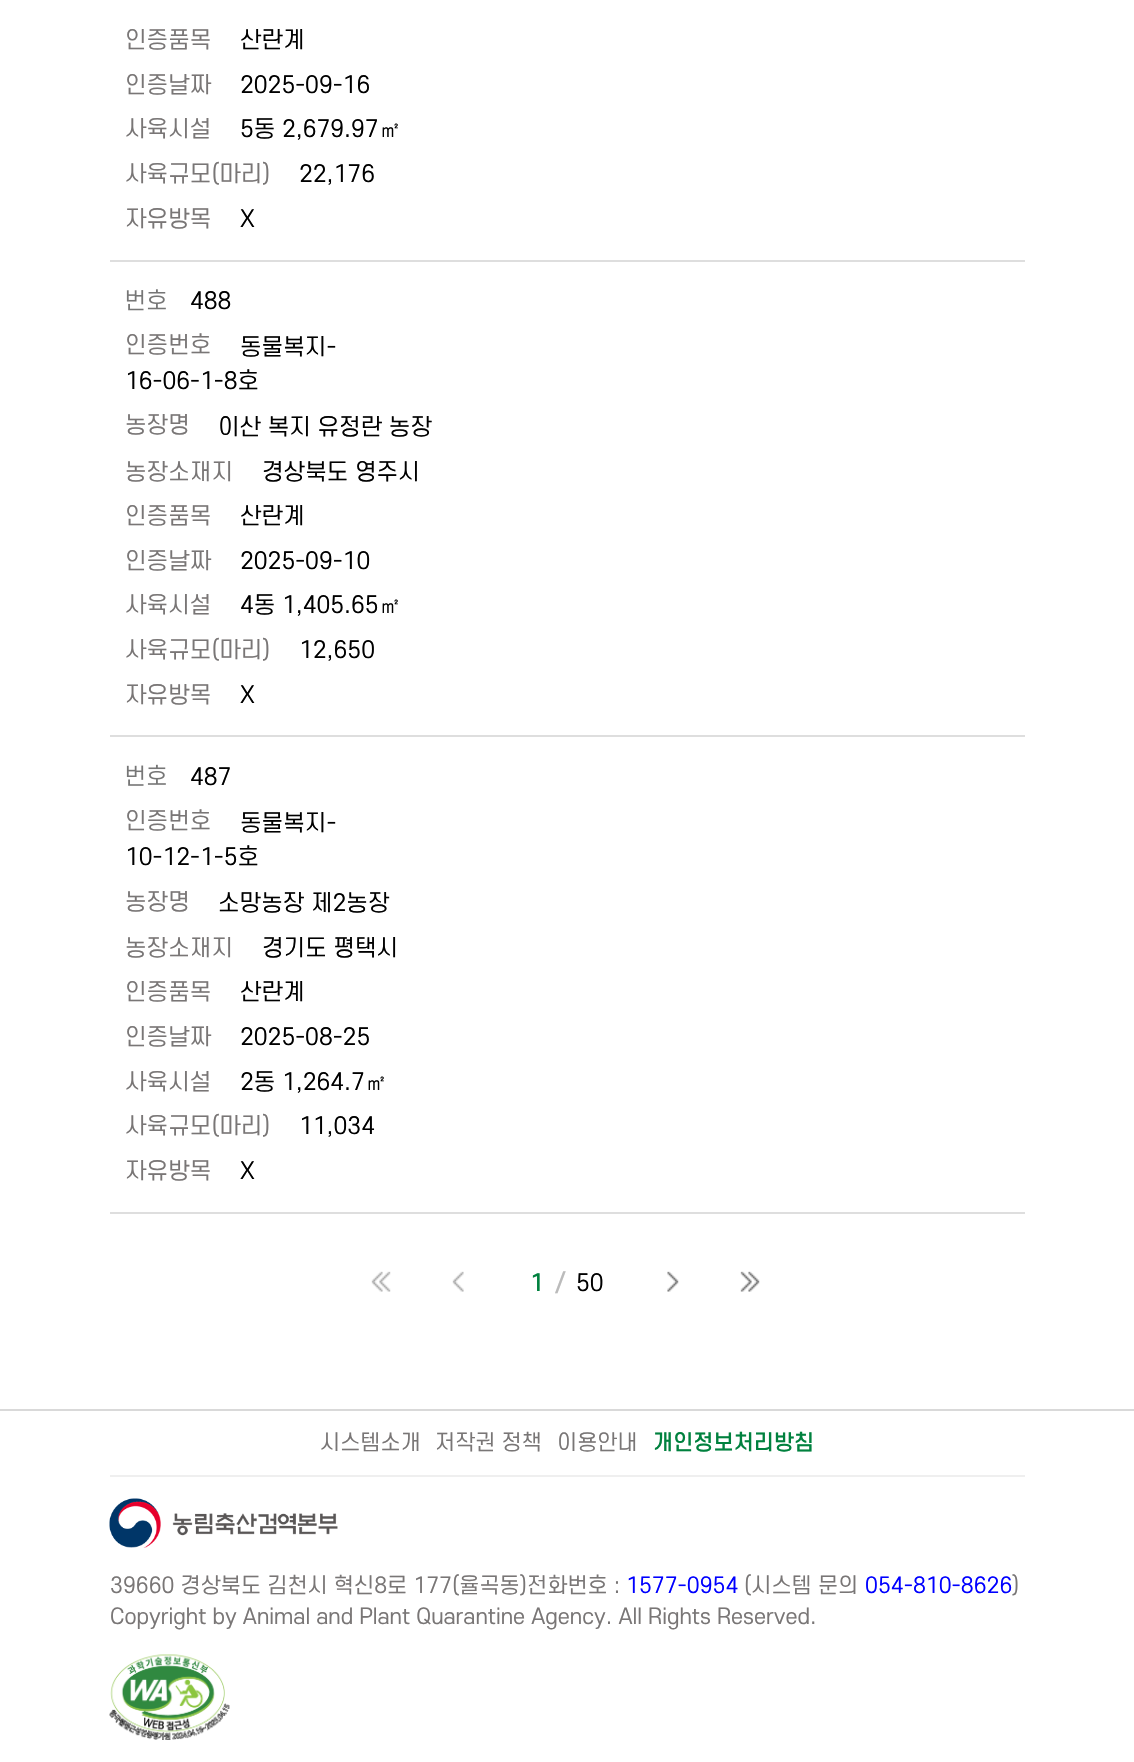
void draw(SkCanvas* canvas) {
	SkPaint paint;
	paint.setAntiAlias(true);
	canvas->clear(0xffffffff);
	paint.setColor(0xffdedede);
	canvas->drawRect(SkRect::MakeXYWH(110, 260, 915, 2), paint);
	SkFont f1(fontMgr->matchFamilyStyle("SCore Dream", SkFontStyle::Normal()), 22.5);
	f1.setSubpixel(true);
	paint.setColor(0xff797676);
	canvas->drawString("인증품목", 125, 48, f1, paint);
	paint.setColor(0xff000000);
	canvas->drawString("산란계", 240, 48, f1, paint);
	paint.setColor(0xff797676);
	canvas->drawString("인증날짜", 125, 93, f1, paint);
	paint.setColor(0xff000000);
	canvas->drawString("2025-09-16", 240, 93, f1, paint);
	paint.setColor(0xff797676);
	canvas->drawString("사육시설", 125, 137, f1, paint);
	paint.setColor(0xff000000);
	canvas->drawString("5동 2,679.97", 240, 137, f1, paint);
	SkFont f2(fontMgr->matchFamilyStyle("WenQuanYi Zen Hei", SkFontStyle(500, SkFontStyle::kNormal_Width, SkFontStyle::kUpright_Slant)), 22.5);
	f2.setSubpixel(true);
	canvas->drawString("㎡", 379, 137, f2, paint);
	paint.setColor(0xff797676);
	canvas->drawString("사육규모(마리)", 125, 182, f1, paint);
	paint.setColor(0xff000000);
	canvas->drawString("22,176", 299, 182, f1, paint);
	paint.setColor(0xff797676);
	canvas->drawString("자유방목", 125, 227, f1, paint);
	paint.setColor(0xff000000);
	canvas->drawString("X", 240, 227, f1, paint);
	paint.setColor(0xffdedede);
	canvas->drawRect(SkRect::MakeXYWH(110, 735, 915, 2), paint);
	canvas->drawImageRect(SkImages::DeferredFromEncodedData(SkData::MakeFromFileName("img1.png")), SkRect::MakeXYWH(126, 289, 40, 22), SkSamplingOptions());
	paint.setColor(0xff000000);
	canvas->drawString("488", 190, 309, f1, paint);
	paint.setColor(0xff797676);
	canvas->drawString("인증번호", 125, 353, f1, paint);
	paint.setColor(0xff000000);
	canvas->drawString("동물복지-", 240, 355, f1, paint);
	canvas->drawString("16-06-1-8호", 125, 389, f1, paint);
	paint.setColor(0xff797676);
	canvas->drawString("농장명", 125, 433, f1, paint);
	paint.setColor(0xff000000);
	canvas->drawString("이산 복지 유정란 농장", 218, 435, f1, paint);
	paint.setColor(0xff797676);
	canvas->drawString("농장소재지", 125, 480, f1, paint);
	paint.setColor(0xff000000);
	canvas->drawString("경상북도 영주시", 262, 480, f1, paint);
	paint.setColor(0xff797676);
	canvas->drawString("인증품목", 125, 524, f1, paint);
	paint.setColor(0xff000000);
	canvas->drawString("산란계", 240, 524, f1, paint);
	paint.setColor(0xff797676);
	canvas->drawString("인증날짜", 125, 569, f1, paint);
	paint.setColor(0xff000000);
	canvas->drawString("2025-09-10", 240, 569, f1, paint);
	paint.setColor(0xff797676);
	canvas->drawString("사육시설", 125, 613, f1, paint);
	paint.setColor(0xff000000);
	canvas->drawString("4동 1,405.65", 240, 613, f1, paint);
	canvas->drawString("㎡", 379, 613, f2, paint);
	paint.setColor(0xff797676);
	canvas->drawString("사육규모(마리)", 125, 658, f1, paint);
	paint.setColor(0xff000000);
	canvas->drawString("12,650", 299, 658, f1, paint);
	paint.setColor(0xff797676);
	canvas->drawString("자유방목", 125, 703, f1, paint);
	paint.setColor(0xff000000);
	canvas->drawString("X", 240, 703, f1, paint);
	paint.setColor(0xffdedede);
	canvas->drawRect(SkRect::MakeXYWH(110, 1212, 915, 2), paint);
	canvas->drawImageRect(SkImages::DeferredFromEncodedData(SkData::MakeFromFileName("img2.png")), SkRect::MakeXYWH(126, 764, 40, 22), SkSamplingOptions());
	paint.setColor(0xff000000);
	canvas->drawString("487", 190, 785, f1, paint);
	paint.setColor(0xff797676);
	canvas->drawString("인증번호", 125, 829, f1, paint);
	paint.setColor(0xff000000);
	canvas->drawString("동물복지-", 240, 831, f1, paint);
	canvas->drawString("10-12-1-5호", 125, 865, f1, paint);
	paint.setColor(0xff797676);
	canvas->drawString("농장명", 125, 910, f1, paint);
	paint.setColor(0xff000000);
	canvas->drawString("소망농장 제2농장", 218, 911, f1, paint);
	paint.setColor(0xff797676);
	canvas->drawString("농장소재지", 125, 956, f1, paint);
	paint.setColor(0xff000000);
	canvas->drawString("경기도 평택시", 262, 956, f1, paint);
	paint.setColor(0xff797676);
	canvas->drawString("인증품목", 125, 1000, f1, paint);
	paint.setColor(0xff000000);
	canvas->drawString("산란계", 240, 1000, f1, paint);
	paint.setColor(0xff797676);
	canvas->drawString("인증날짜", 125, 1045, f1, paint);
	paint.setColor(0xff000000);
	canvas->drawString("2025-08-25", 240, 1045, f1, paint);
	paint.setColor(0xff797676);
	canvas->drawString("사육시설", 125, 1090, f1, paint);
	paint.setColor(0xff000000);
	canvas->drawString("2동 1,264.7", 240, 1090, f1, paint);
	canvas->drawString("㎡", 365, 1090, f2, paint);
	paint.setColor(0xff797676);
	canvas->drawString("사육규모(마리)", 125, 1134, f1, paint);
	paint.setColor(0xff000000);
	canvas->drawString("11,034", 299, 1134, f1, paint);
	paint.setColor(0xff797676);
	canvas->drawString("자유방목", 125, 1179, f1, paint);
	paint.setColor(0xff000000);
	canvas->drawString("X", 240, 1179, f1, paint);
	canvas->drawImageRect(SkImages::DeferredFromEncodedData(SkData::MakeFromFileName("img3.png")), SkRect::MakeXYWH(371, 1271, 20, 21), SkSamplingOptions());
	canvas->drawImageRect(SkImages::DeferredFromEncodedData(SkData::MakeFromFileName("img4.png")), SkRect::MakeXYWH(452, 1271, 12, 21), SkSamplingOptions());
	SkFont f3(fontMgr->matchFamilyStyle("SCore Dream", SkFontStyle(500, SkFontStyle::kNormal_Width, SkFontStyle::kUpright_Slant)), 22.5);
	f3.setSubpixel(true);
	paint.setColor(0xff00813e);
	canvas->drawString("1", 530, 1291, f3, paint);
	paint.setColor(0xffbbbbbb);
	canvas->drawString("/", 555, 1291, f3, paint);
	paint.setColor(0xff000000);
	canvas->drawString("50", 576, 1291, f1, paint);
	canvas->drawImageRect(SkImages::DeferredFromEncodedData(SkData::MakeFromFileName("img5.png")), SkRect::MakeXYWH(667, 1271, 12, 21), SkSamplingOptions());
	canvas->drawImageRect(SkImages::DeferredFromEncodedData(SkData::MakeFromFileName("img6.png")), SkRect::MakeXYWH(740, 1271, 20, 21), SkSamplingOptions());
	paint.setColor(0xffd9d9d9);
	canvas->drawRect(SkRect::MakeXYWH(0, 1409, 1134, 2), paint);
	paint.setColor(0xffefefef);
	canvas->drawRect(SkRect::MakeXYWH(110, 1475, 915, 2), paint);
	SkFont f4(fontMgr->matchFamilyStyle("SCore Dream", SkFontStyle::Normal()), 21);
	f4.setSubpixel(true);
	paint.setColor(0xff797676);
	canvas->drawString("시스템소개", 320, 1450, f4, paint);
	canvas->drawString("저작권 정책", 435, 1450, f4, paint);
	canvas->drawString("이용안내", 557, 1450, f4, paint);
	SkFont f5(fontMgr->matchFamilyStyle("SCore Dream", SkFontStyle(500, SkFontStyle::kNormal_Width, SkFontStyle::kUpright_Slant)), 21);
	f5.setSubpixel(true);
	paint.setColor(0xff00813e);
	canvas->drawString("개인정보처리방침", 653, 1450, f5, paint);
	canvas->drawImageRect(SkImages::DeferredFromEncodedData(SkData::MakeFromFileName("img7.png")), SkRect::MakeXYWH(109, 1498, 229, 50), SkSamplingOptions());
	paint.setColor(0xff797676);
	canvas->drawString("39660 경상북도 김천시 혁신8로 177(율곡동)전화번호 :", 110, 1593, f4, paint);
	paint.setColor(0xff0000ff);
	canvas->drawString("1577-0954", 626, 1593, f4, paint);
	paint.setColor(0xff797676);
	canvas->drawString("(시스템 문의", 744, 1593, f4, paint);
	paint.setColor(0xff0000ff);
	canvas->drawString("054-810-8626", 865, 1593, f4, paint);
	paint.setColor(0xff797676);
	canvas->drawString(")", 1012, 1593, f4, paint);
	canvas->drawString("Copyright by Animal and Plant Quarantine Agency. All Rights Reserved.", 110, 1624, f4, paint);
	canvas->drawImageRect(SkImages::DeferredFromEncodedData(SkData::MakeFromFileName("img8.png")), SkRect::MakeXYWH(109, 1654, 121, 86), SkSamplingOptions());
}
